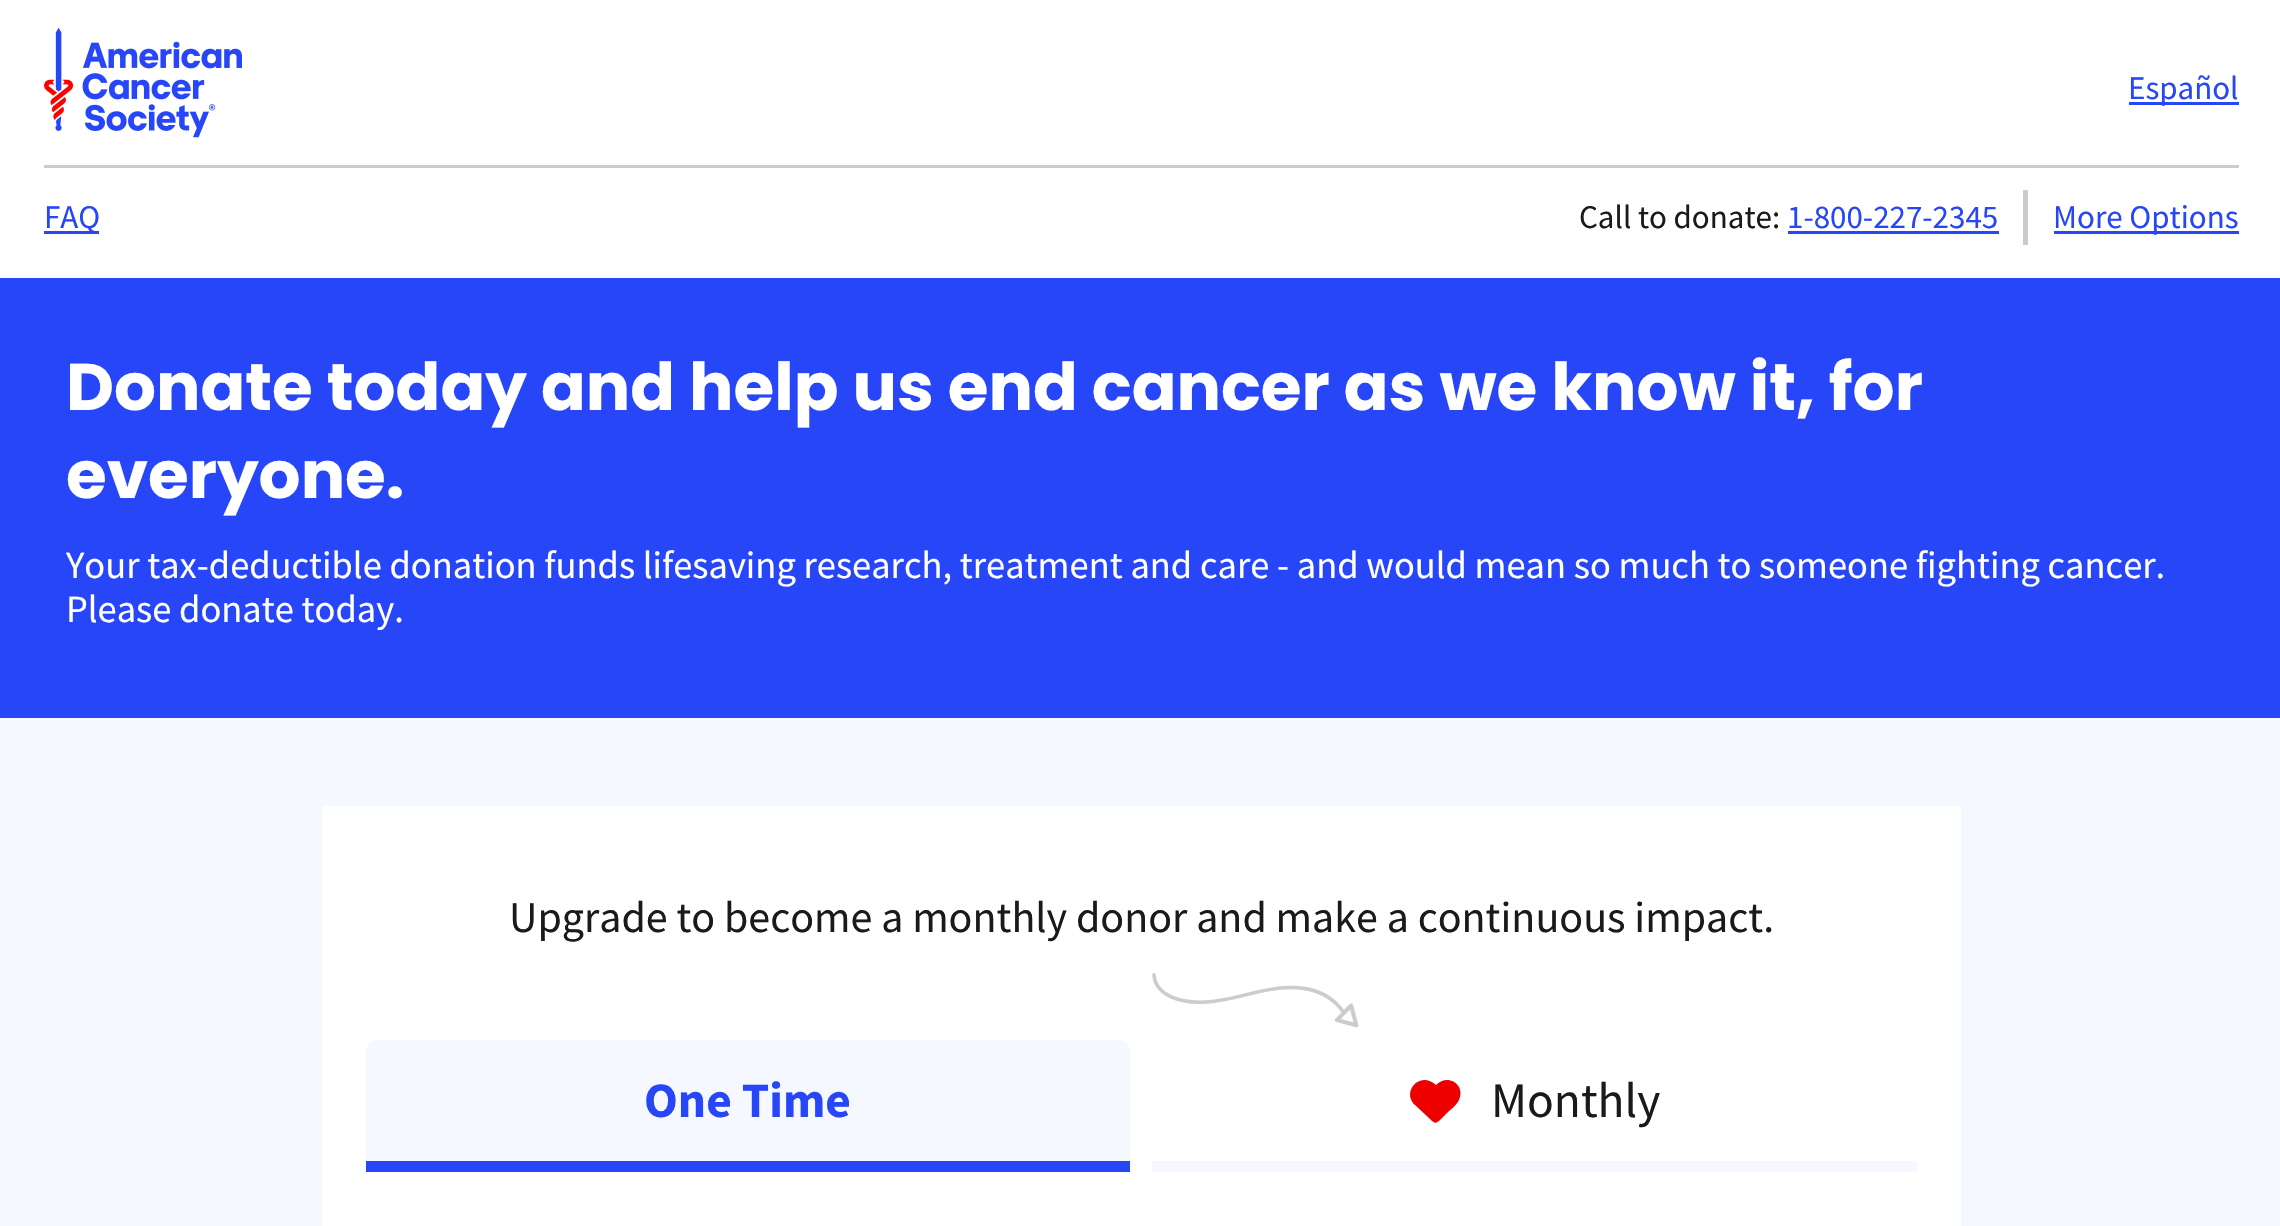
void draw(SkCanvas* canvas) {
	SkPaint paint;
	paint.setAntiAlias(true);
	auto svgPath = [&](const char* data, bool evenOdd = false) {
		SkPath result = *SkParsePath::FromSVGString(data);
		if (evenOdd) result.setFillType(SkPathFillType::kEvenOdd);
		return result;
	};
	canvas->clear(0xfff6f8ff);
	paint.setColor(0xffffffff);
	canvas->drawRect(SkRect::MakeXYWH(0, 0, 2280, 278), paint);
	canvas->drawImageRect(SkImages::DeferredFromEncodedData(SkData::MakeFromFileName("img1.png")), SkRect::MakeXYWH(44, 28, 198, 110), SkSamplingOptions());
	paint.setColor(0xff2746f8);
	canvas->drawRect(SkRect::MakeXYWH(2129, 102, 110, 3), paint);
	SkFont f1(fontMgr->matchFamilyStyle("Source Sans Pro", SkFontStyle::Normal()), 33);
	f1.setSubpixel(true);
	canvas->drawString("Español", 2128, 99, f1, paint);
	paint.setColor(0xffcccccc);
	canvas->drawRect(SkRect::MakeXYWH(44, 165, 2195, 3), paint);
	paint.setColor(0xff2746f8);
	canvas->drawRect(SkRect::MakeXYWH(44, 231, 55, 3), paint);
	canvas->drawString("FAQ", 44, 228, f1, paint);
	paint.setColor(0xff1a1a1a);
	canvas->drawString("Call to donate:", 1579, 228, f1, paint);
	paint.setColor(0xff2746f8);
	canvas->drawString("1-800-227-2345", 1787, 228, f1, paint);
	canvas->drawRect(SkRect::MakeXYWH(1788, 231, 211, 3), paint);
	paint.setColor(0xffcccccc);
	canvas->drawRect(SkRect::MakeXYWH(2023, 190, 5, 55), paint);
	paint.setColor(0xff2746f8);
	canvas->drawRect(SkRect::MakeXYWH(2054, 231, 185, 3), paint);
	canvas->drawString("More Options", 2053, 228, f1, paint);
	canvas->drawRect(SkRect::MakeXYWH(0, 278, 2280, 440), paint);
	SkFont f2(fontMgr->matchFamilyStyle("Poppins", SkFontStyle::Bold()), 66);
	f2.setSubpixel(true);
	paint.setColor(0xffffffff);
	canvas->drawString("Donate today and help us end cancer as we know it, for", 66, 410, f2, paint);
	canvas->drawString("everyone.", 66, 498, f2, paint);
	SkFont f3(fontMgr->matchFamilyStyle("Source Sans Pro", SkFontStyle::Normal()), 38.5);
	f3.setSubpixel(true);
	canvas->drawString("Your tax-deductible donation funds lifesaving research, treatment and care - and would mean so much to someone fighting cancer.", 66, 578, f3, paint);
	canvas->drawString("Please donate today.", 66, 622, f3, paint);
	canvas->drawRect(SkRect::MakeXYWH(322, 806, 1639, 420), paint);
	SkFont f4(fontMgr->matchFamilyStyle("Source Sans Pro", SkFontStyle::Normal()), 44);
	f4.setSubpixel(true);
	paint.setColor(0xff1a1a1a);
	canvas->drawString("Upgrade to become a monthly donor and make a continuous impact.", 509, 932, f4, paint);
	canvas->drawImageRect(SkImages::DeferredFromEncodedData(SkData::MakeFromFileName("img2.png")), SkRect::MakeXYWH(1152, 973, 207, 55), SkSamplingOptions());
	paint.setColor(0xfff6f8ff);
	canvas->drawPath(svgPath("M377 1040H1119C1125 1040 1130 1045 1130 1051V1172H366V1051C366 1045 371 1040 377 1040Z"), paint);
	paint.setColor(0xff2746f8);
	canvas->drawRect(SkRect::MakeXYWH(366, 1161, 764, 11), paint);
	SkFont f5(fontMgr->matchFamilyStyle("Source Sans Pro", SkFontStyle::Bold()), 49.5);
	f5.setSubpixel(true);
	canvas->drawString("One Time", 644, 1117, f5, paint);
	paint.setColor(0xfff6f8ff);
	canvas->drawRect(SkRect::MakeXYWH(1152, 1161, 765, 11), paint);
	paint.setColor(0xffee0000);
	canvas->drawPath(svgPath("M1415 1105L1430 1119C1435 1124 1436 1124 1441 1119L1447 1113C1451 1109 1457 1105 1459 1100C1466 1085 1448 1073 1436 1085C1420 1070 1401 1092 1415 1105Z"), paint);
	SkFont f6(fontMgr->matchFamilyStyle("Source Sans Pro", SkFontStyle::Normal()), 49.5);
	f6.setSubpixel(true);
	paint.setColor(0xff1a1a1a);
	canvas->drawString("Monthly", 1491, 1117, f6, paint);
}
